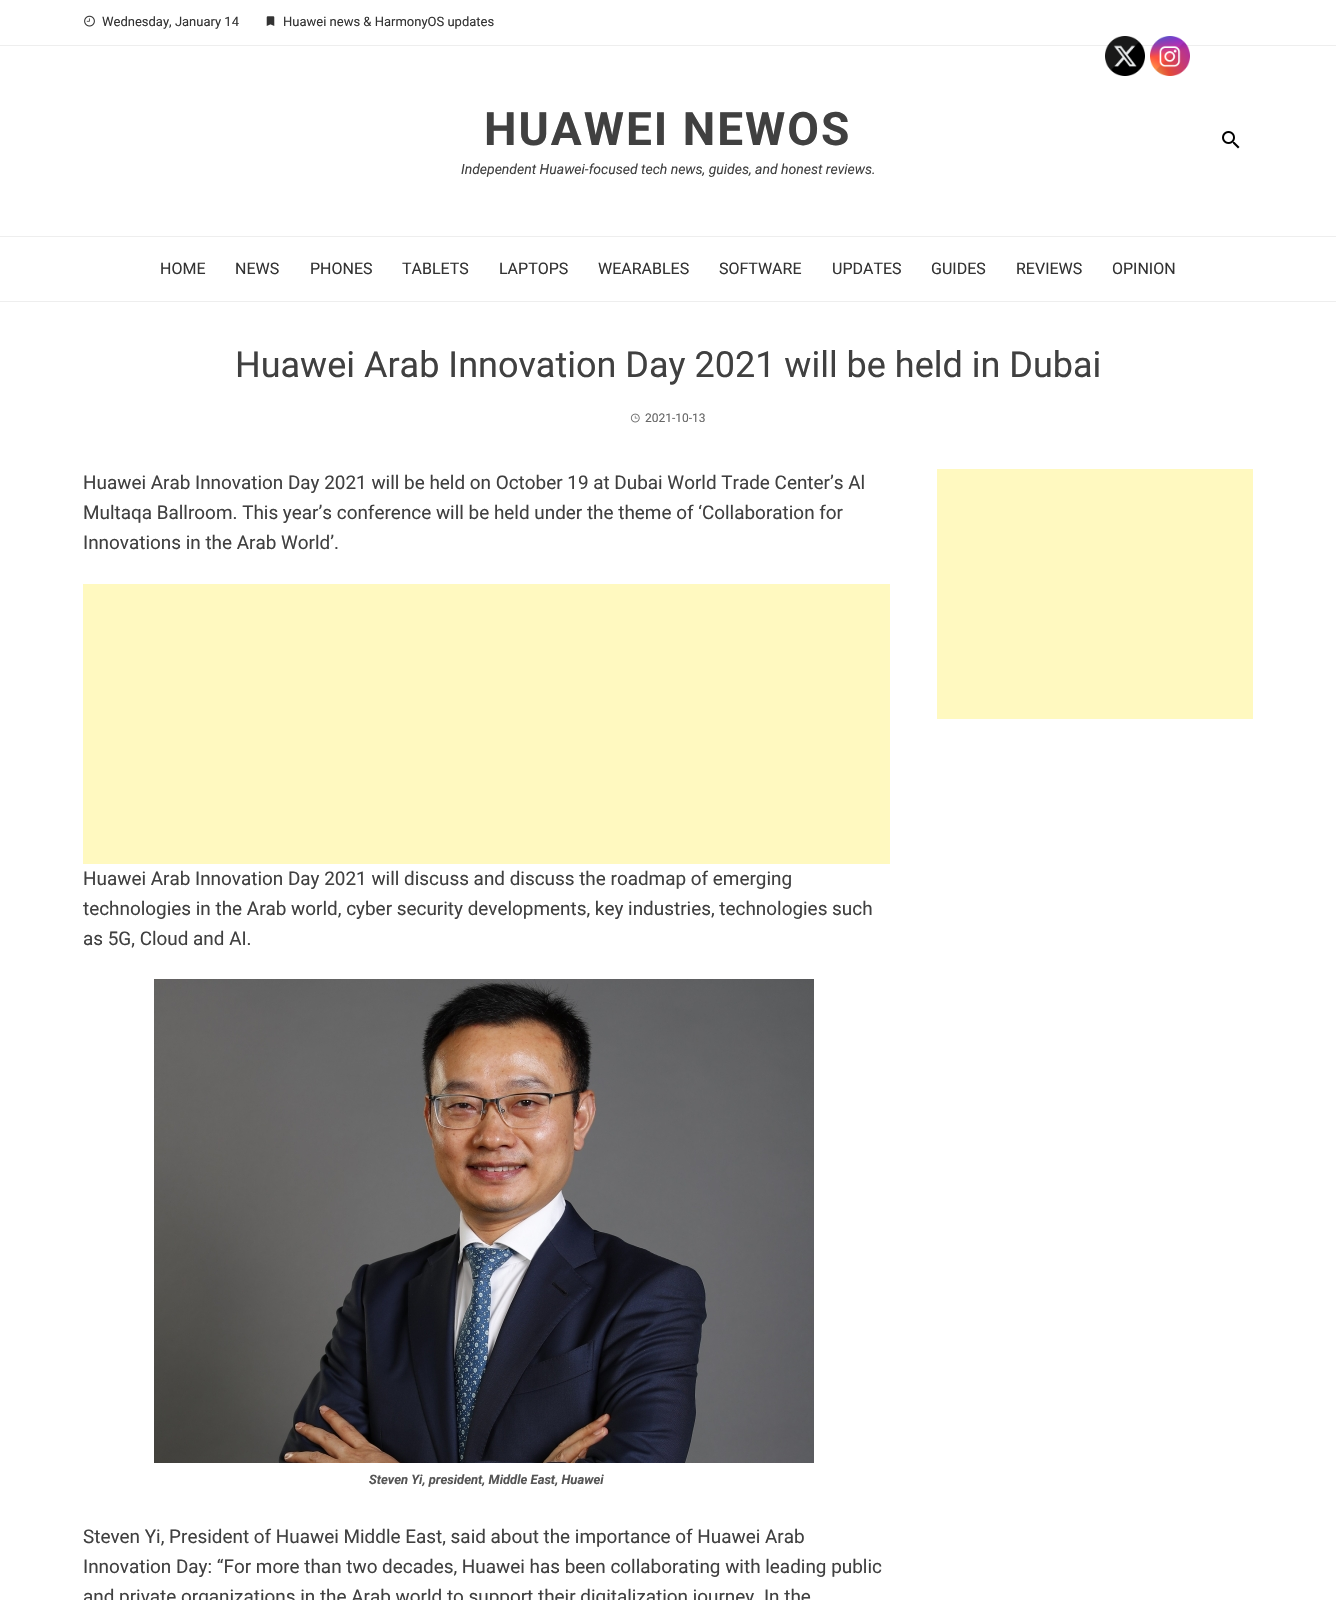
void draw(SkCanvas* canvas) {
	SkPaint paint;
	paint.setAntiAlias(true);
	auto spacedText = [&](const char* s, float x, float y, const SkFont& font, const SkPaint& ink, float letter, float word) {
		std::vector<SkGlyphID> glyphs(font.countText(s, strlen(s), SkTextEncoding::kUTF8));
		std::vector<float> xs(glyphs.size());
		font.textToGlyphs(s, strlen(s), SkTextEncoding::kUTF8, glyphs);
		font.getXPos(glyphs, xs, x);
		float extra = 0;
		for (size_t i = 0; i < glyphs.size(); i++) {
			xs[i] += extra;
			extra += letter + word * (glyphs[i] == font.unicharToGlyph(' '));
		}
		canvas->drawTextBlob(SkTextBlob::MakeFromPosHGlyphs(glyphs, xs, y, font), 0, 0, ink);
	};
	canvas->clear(0xffffffff);
	paint.setColor(0xffeeeeee);
	canvas->drawRect(SkRect::MakeXYWH(0, 45, 1336, 1), paint);
	canvas->drawImageRect(SkImages::DeferredFromEncodedData(SkData::MakeFromFileName("img1.png")), SkRect::MakeXYWH(84, 15, 11, 12), SkSamplingOptions());
	SkFont f1(fontMgr->matchFamilyStyle("Roboto", SkFontStyle::Normal()), 13);
	f1.setSubpixel(true);
	paint.setColor(0xff333333);
	canvas->drawString("Wednesday, January 14", 102, 26, f1, paint);
	canvas->drawImageRect(SkImages::DeferredFromEncodedData(SkData::MakeFromFileName("img2.png")), SkRect::MakeXYWH(266, 16, 9, 10), SkSamplingOptions());
	canvas->drawString("Huawei news & HarmonyOS updates", 283, 26, f1, paint);
	SkFont f2(fontMgr->matchFamilyStyle("Roboto", SkFontStyle::Bold()), 46);
	f2.setSubpixel(true);
	paint.setColor(0xff404040);
	spacedText("HUAWEI NEWOS", 484, 145, f2, paint, 2, 0);
	SkFont f3(fontMgr->matchFamilyStyle("Roboto", SkFontStyle::Italic()), 14);
	f3.setSubpixel(true);
	canvas->drawString("Independent Huawei-focused tech news, guides, and honest reviews.", 461, 174, f3, paint);
	canvas->drawImageRect(SkImages::DeferredFromEncodedData(SkData::MakeFromFileName("img3.png")), SkRect::MakeXYWH(1222, 131, 18, 18), SkSamplingOptions());
	paint.setColor(0xffeeeeee);
	canvas->drawRect(SkRect::MakeXYWH(0, 236, 1336, 1), paint);
	canvas->drawRect(SkRect::MakeXYWH(0, 301, 1336, 1), paint);
	SkFont f4(fontMgr->matchFamilyStyle("Roboto", SkFontStyle::Normal()), 16);
	f4.setSubpixel(true);
	paint.setColor(0xff333333);
	canvas->drawString("HOME", 160, 274, f4, paint);
	canvas->drawString("NEWS", 235, 274, f4, paint);
	canvas->drawString("PHONES", 310, 274, f4, paint);
	canvas->drawString("TABLETS", 402, 274, f4, paint);
	canvas->drawString("LAPTOPS", 499, 274, f4, paint);
	canvas->drawString("WEARABLES", 598, 274, f4, paint);
	canvas->drawString("SOFTWARE", 719, 274, f4, paint);
	canvas->drawString("UPDATES", 832, 274, f4, paint);
	canvas->drawString("GUIDES", 931, 274, f4, paint);
	canvas->drawString("REVIEWS", 1016, 274, f4, paint);
	canvas->drawString("OPINION", 1112, 274, f4, paint);
	SkFont f5(fontMgr->matchFamilyStyle("Roboto", SkFontStyle::Normal()), 36);
	f5.setSubpixel(true);
	paint.setColor(0xff404040);
	canvas->drawString("Huawei Arab Innovation Day 2021 will be held in Dubai", 235, 377, f5, paint);
	canvas->drawImageRect(SkImages::DeferredFromEncodedData(SkData::MakeFromFileName("img4.png")), SkRect::MakeXYWH(630, 413, 10, 10), SkSamplingOptions());
	SkFont f6(fontMgr->matchFamilyStyle("Roboto", SkFontStyle::Normal()), 12);
	f6.setSubpixel(true);
	paint.setColor(0xff666666);
	canvas->drawString("2021-10-13", 645, 422, f6, paint);
	SkFont f7(fontMgr->matchFamilyStyle("Roboto", SkFontStyle::Normal()), 18.9);
	f7.setSubpixel(true);
	paint.setColor(0xff404040);
	canvas->drawString("Huawei Arab Innovation Day 2021 will be held on October 19 at Dubai World Trade Center’s Al", 83, 489, f7, paint);
	canvas->drawString("Multaqa Ballroom. This year’s conference will be held under the theme of ‘Collaboration for", 83, 519, f7, paint);
	canvas->drawString("Innovations in the Arab World’.", 83, 549, f7, paint);
	paint.setColor(0xfffff9c0);
	canvas->drawRect(SkRect::MakeXYWH(83, 584, 807, 280), paint);
	paint.setColor(0xff404040);
	canvas->drawString("Huawei Arab Innovation Day 2021 will discuss and discuss the roadmap of emerging", 83, 885, f7, paint);
	canvas->drawString("technologies in the Arab world, cyber security developments, key industries, technologies such", 83, 915, f7, paint);
	canvas->drawString("as 5G, Cloud and AI.", 83, 945, f7, paint);
	canvas->drawImageRect(SkImages::DeferredFromEncodedData(SkData::MakeFromFileName("img5.png")), SkRect::MakeXYWH(154, 979, 660, 484), SkSamplingOptions());
	SkFont f8(fontMgr->matchFamilyStyle("Roboto", SkFontStyle::BoldItalic()), 13);
	f8.setSubpixel(true);
	paint.setColor(0xff555555);
	canvas->drawString("Steven Yi, president, Middle East, Huawei", 369, 1484, f8, paint);
	paint.setColor(0xff404040);
	canvas->drawString("Steven Yi, President of Huawei Middle East, said about the importance of Huawei Arab", 83, 1543, f7, paint);
	canvas->drawString("Innovation Day: “For more than two decades, Huawei has been collaborating with leading public", 83, 1573, f7, paint);
	canvas->drawString("and private organizations in the Arab world to support their digitalization journey. In the", 83, 1603, f7, paint);
	paint.setColor(0xfffff9c0);
	canvas->drawRect(SkRect::MakeXYWH(937, 469, 316, 250), paint);
	canvas->drawImageRect(SkImages::DeferredFromEncodedData(SkData::MakeFromFileName("img6.png")), SkRect::MakeXYWH(1105, 36, 40, 40), SkSamplingOptions());
	canvas->drawImageRect(SkImages::DeferredFromEncodedData(SkData::MakeFromFileName("img7.png")), SkRect::MakeXYWH(1150, 36, 40, 40), SkSamplingOptions());
}
